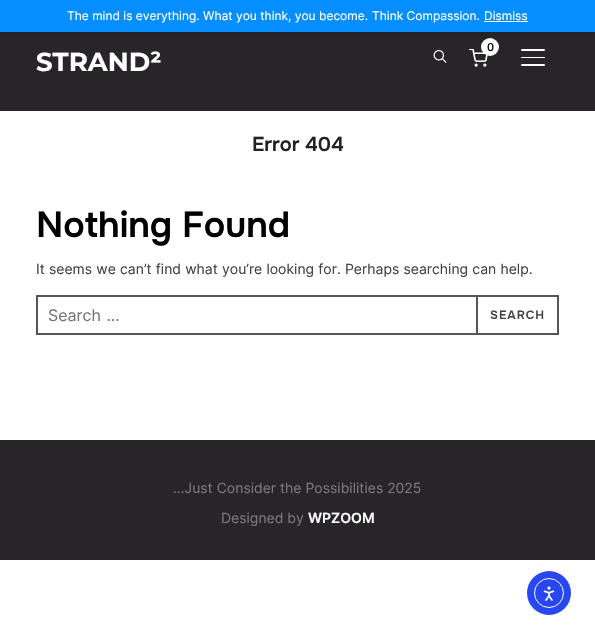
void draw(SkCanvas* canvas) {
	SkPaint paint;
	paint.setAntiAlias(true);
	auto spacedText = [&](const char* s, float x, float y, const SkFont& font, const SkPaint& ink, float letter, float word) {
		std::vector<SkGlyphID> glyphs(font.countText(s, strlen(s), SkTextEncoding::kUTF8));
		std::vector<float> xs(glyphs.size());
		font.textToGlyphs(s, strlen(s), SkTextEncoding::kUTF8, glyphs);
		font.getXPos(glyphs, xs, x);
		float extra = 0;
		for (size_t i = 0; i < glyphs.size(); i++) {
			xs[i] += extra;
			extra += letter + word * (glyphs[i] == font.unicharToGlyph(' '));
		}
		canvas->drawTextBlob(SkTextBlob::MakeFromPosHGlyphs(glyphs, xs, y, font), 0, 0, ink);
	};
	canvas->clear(0xffffffff);
	paint.setColor(0xff272528);
	canvas->drawRect(SkRect::MakeXYWH(0, 32, 595, 79), paint);
	canvas->drawImageRect(SkImages::DeferredFromEncodedData(SkData::MakeFromFileName("img1.png")), SkRect::MakeXYWH(469, 49, 19, 18), SkSamplingOptions());
	paint.setColor(0xffffffff);
	canvas->drawCircle(490, 47, 9, paint);
	canvas->drawImageRect(SkImages::DeferredFromEncodedData(SkData::MakeFromFileName("img2.png")), SkRect::MakeXYWH(433, 50, 14, 13), SkSamplingOptions());
	canvas->drawRoundRect(SkRect::MakeXYWH(521, 49, 24, 2), 1, 1, paint);
	paint.setColor(0x33000000);
	paint.setMaskFilter(SkMaskFilter::MakeBlur(kNormal_SkBlurStyle, 6));
	canvas->drawRect(SkRect::MakeXYWH(0, 1, 595, 32), paint);
	paint.setMaskFilter(nullptr);
	paint.setColor(0xff058eff);
	canvas->drawRect(SkRect::MakeXYWH(0, 0, 595, 32), paint);
	SkFont f1(fontMgr->matchFamilyStyle("Inter", SkFontStyle::Normal()), 12);
	f1.setSubpixel(true);
	paint.setColor(0xffffffff);
	canvas->drawString("The mind is everything.", 67, 20, f1, paint);
	canvas->drawString("What you think, you become.", 203, 20, f1, paint);
	canvas->drawString("Think Compassion.", 372, 20, f1, paint);
	canvas->drawString("Dismiss", 484, 20, f1, paint);
	paint.setColor(0xfffcfbfe);
	canvas->drawRect(SkRect::MakeXYWH(484, 21, 44, 1), paint);
	SkFont f2(fontMgr->matchFamilyStyle("Inter", SkFontStyle(500, SkFontStyle::kNormal_Width, SkFontStyle::kUpright_Slant)), 11);
	f2.setSubpixel(true);
	paint.setColor(0xff000000);
	canvas->drawString("0", 487, 51, f2, paint);
	SkFont f3(fontMgr->matchFamilyStyle("Montserrat", SkFontStyle::Bold()), 26);
	f3.setSubpixel(true);
	paint.setColor(0xffffffff);
	canvas->drawString("STRAND²", 36, 71, f3, paint);
	canvas->drawRoundRect(SkRect::MakeXYWH(521, 57, 24, 1), 0.5, 0.5, paint);
	canvas->drawRoundRect(SkRect::MakeXYWH(521, 64, 24, 2), 1, 1, paint);
	SkFont f4(fontMgr->matchFamilyStyle("Onest", SkFontStyle(600, SkFontStyle::kNormal_Width, SkFontStyle::kUpright_Slant)), 20);
	f4.setSubpixel(true);
	paint.setColor(0xff222222);
	canvas->drawString("Error 404", 252, 151, f4, paint);
	SkFont f5(fontMgr->matchFamilyStyle("Onest", SkFontStyle(600, SkFontStyle::kNormal_Width, SkFontStyle::kUpright_Slant)), 36);
	f5.setSubpixel(true);
	paint.setColor(0xff000000);
	canvas->drawString("Nothing Found", 36, 237, f5, paint);
	SkFont f6(fontMgr->matchFamilyStyle("Inter", SkFontStyle::Normal()), 14);
	f6.setSubpixel(true);
	paint.setColor(0xff444444);
	spacedText("It seems we can’t find what you’re looking for. Perhaps searching can help.", 36, 274, f6, paint, 0, 0.25);
	paint.setStroke(true);
	paint.setStrokeWidth(2);
	paint.setColor(0xff565555);
	canvas->drawRect(SkRect::MakeXYWH(37, 296, 521, 38), paint);
	SkFont f7(fontMgr->matchFamilyStyle("Inter", SkFontStyle::Normal()), 16);
	f7.setSubpixel(true);
	paint.setStroke(false);
	paint.setColor(0xff757575);
	spacedText("Search …", 48, 321, f7, paint, 0, 1);
	paint.setStroke(true);
	paint.setColor(0xff565555);
	canvas->drawRect(SkRect::MakeXYWH(477, 296, 81, 38), paint);
	SkFont f8(fontMgr->matchFamilyStyle("Onest", SkFontStyle(600, SkFontStyle::kNormal_Width, SkFontStyle::kUpright_Slant)), 12);
	f8.setSubpixel(true);
	paint.setStroke(false);
	paint.setColor(0xff444444);
	spacedText("SEARCH", 490, 319, f8, paint, 1, 0);
	paint.setColor(0xff272528);
	canvas->drawRect(SkRect::MakeXYWH(0, 440, 595, 120), paint);
	paint.setColor(0xff78787f);
	canvas->drawString("...Just Consider the Possibilities 2025", 173, 493, f6, paint);
	canvas->drawString("Designed by", 221, 523, f6, paint);
	SkFont f9(fontMgr->matchFamilyStyle("Inter", SkFontStyle(600, SkFontStyle::kNormal_Width, SkFontStyle::kUpright_Slant)), 14);
	f9.setSubpixel(true);
	paint.setColor(0xffffffff);
	canvas->drawString("WPZOOM", 308, 523, f9, paint);
	paint.setColor(0xff2847f3);
	canvas->drawCircle(549, 593, 22, paint);
	paint.setStroke(true);
	paint.setStrokeWidth(1);
	paint.setColor(0xffffffff);
	canvas->drawCircle(549, 593, 14.5, paint);
	canvas->drawImageRect(SkImages::DeferredFromEncodedData(SkData::MakeFromFileName("img3.png")), SkRect::MakeXYWH(543, 586, 12, 15), SkSamplingOptions());
}
